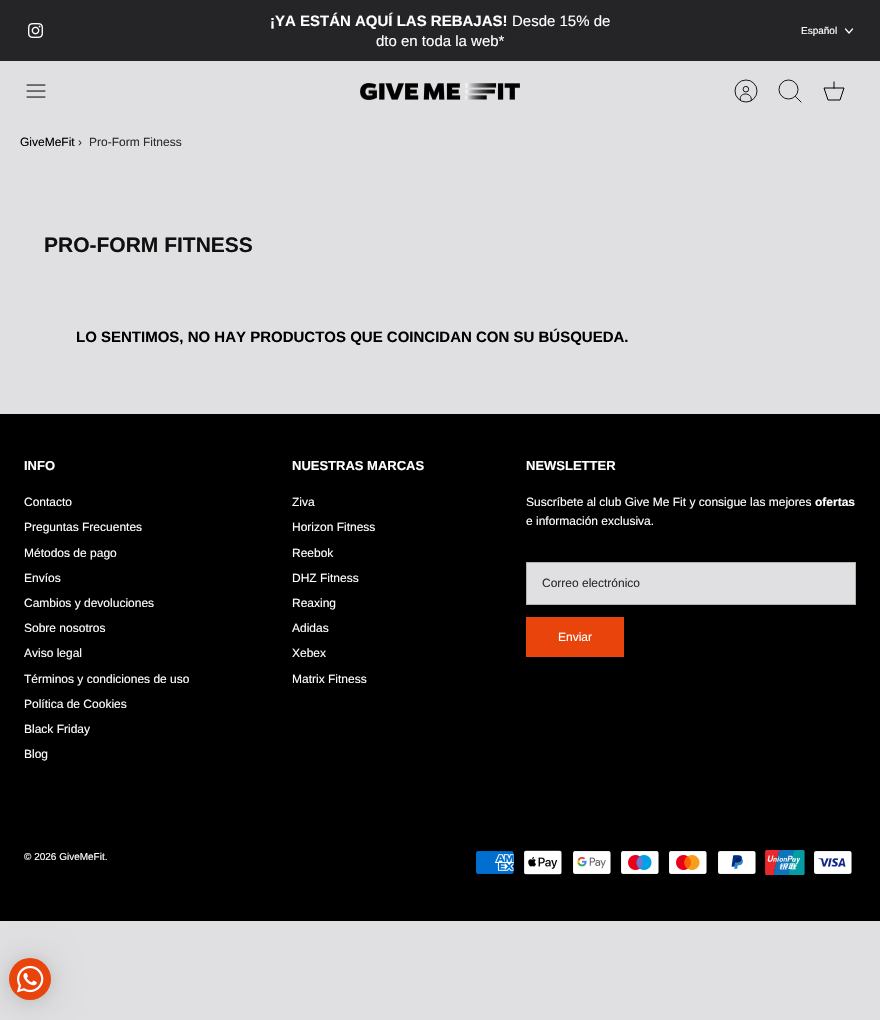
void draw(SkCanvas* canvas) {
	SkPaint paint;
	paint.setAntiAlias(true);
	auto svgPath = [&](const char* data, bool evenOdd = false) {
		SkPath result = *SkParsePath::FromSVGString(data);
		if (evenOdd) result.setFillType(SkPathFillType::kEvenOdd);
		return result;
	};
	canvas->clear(0xffe0e0e2);
	paint.setColor(0xff252528);
	canvas->drawRect(SkRect::MakeXYWH(0, 0, 880, 61), paint);
	canvas->drawImageRect(SkImages::DeferredFromEncodedData(SkData::MakeFromFileName("img1.png")), SkRect::MakeXYWH(28, 23, 15, 15), SkSamplingOptions());
	SkFont f1(fontMgr->matchFamilyStyle("Liberation Sans", SkFontStyle::Bold()), 15);
	f1.setSubpixel(true);
	paint.setColor(0xffffffff);
	canvas->drawString("¡YA ESTÁN AQUÍ LAS REBAJAS!", 270, 26, f1, paint);
	SkFont f2(fontMgr->matchFamilyStyle("Liberation Sans", SkFontStyle::Normal()), 15);
	f2.setSubpixel(true);
	canvas->drawString("Desde 15% de", 512, 26, f2, paint);
	canvas->drawString("dto en toda la web*", 376, 46, f2, paint);
	SkFont f3(fontMgr->matchFamilyStyle("Liberation Sans", SkFontStyle::Normal()), 10);
	f3.setSubpixel(true);
	canvas->drawString("Español", 801, 34, f3, paint);
	paint.setStroke(true);
	paint.setStrokeWidth(1.2);
	paint.setStrokeCap(SkPaint::kRound_Cap);
	paint.setStrokeJoin(SkPaint::kRound_Join);
	canvas->drawPath(svgPath("M845.5 29L849 33L852.5 29"), paint);
	canvas->drawImageRect(SkImages::DeferredFromEncodedData(SkData::MakeFromFileName("img2.png")), SkRect::MakeXYWH(26, 84, 20, 14), SkSamplingOptions());
	canvas->drawImageRect(SkImages::DeferredFromEncodedData(SkData::MakeFromFileName("img3.png")), SkRect::MakeXYWH(360, 83, 160, 17), SkSamplingOptions());
	paint.setStrokeWidth(0.9);
	paint.setStrokeCap(SkPaint::kButt_Cap);
	paint.setStrokeJoin(SkPaint::kMiter_Join);
	paint.setColor(0xff000000);
	canvas->drawPath(svgPath("M751 101C753.5 92 738 91.5 740.5 100.5"), paint);
	canvas->drawCircle(745.9, 89.2, 2.8, paint);
	canvas->drawCircle(746, 91, 11, paint);
	canvas->drawCircle(788.5, 89.5, 9.5, paint);
	paint.setStrokeCap(SkPaint::kSquare_Cap);
	canvas->drawPath(svgPath("M795.5 96.5L801 102"), paint);
	paint.setStrokeWidth(1);
	paint.setStrokeCap(SkPaint::kButt_Cap);
	canvas->drawPath(svgPath("M824 88H844L840 100H828Z"), paint);
	paint.setStrokeCap(SkPaint::kSquare_Cap);
	canvas->drawPath(svgPath("M834 88V82"), paint);
	SkFont f4(fontMgr->matchFamilyStyle("Liberation Sans", SkFontStyle::Normal()), 12);
	f4.setSubpixel(true);
	paint.setStroke(false);
	canvas->drawString("GiveMeFit", 20, 146, f4, paint);
	paint.setColor(0xff2d2d2d);
	canvas->drawString("›", 78, 146, f4, paint);
	canvas->drawString("Pro-Form Fitness", 89, 146, f4, paint);
	SkFont f5(fontMgr->matchFamilyStyle("Liberation Sans", SkFontStyle::Bold()), 21);
	f5.setSubpixel(true);
	paint.setColor(0xff101010);
	canvas->drawString("PRO-FORM FITNESS", 44, 252, f5, paint);
	paint.setColor(0xff000000);
	canvas->drawString("LO SENTIMOS, NO HAY PRODUCTOS QUE COINCIDAN CON SU BÚSQUEDA.", 76, 342, f1, paint);
	canvas->drawRect(SkRect::MakeXYWH(0, 414, 880, 507), paint);
	SkFont f6(fontMgr->matchFamilyStyle("Liberation Sans", SkFontStyle::Bold()), 13);
	f6.setSubpixel(true);
	paint.setColor(0xffffffff);
	canvas->drawString("INFO", 24, 470, f6, paint);
	canvas->drawString("Contacto", 24, 506, f4, paint);
	canvas->drawString("Preguntas Frecuentes", 24, 531, f4, paint);
	canvas->drawString("Métodos de pago", 24, 557, f4, paint);
	canvas->drawString("Envíos", 24, 582, f4, paint);
	canvas->drawString("Cambios y devoluciones", 24, 607, f4, paint);
	canvas->drawString("Sobre nosotros", 24, 632, f4, paint);
	canvas->drawString("Aviso legal", 24, 657, f4, paint);
	canvas->drawString("Términos y condiciones de uso", 24, 683, f4, paint);
	canvas->drawString("Política de Cookies", 24, 708, f4, paint);
	canvas->drawString("Black Friday", 24, 733, f4, paint);
	canvas->drawString("Blog", 24, 758, f4, paint);
	canvas->drawString("NUESTRAS MARCAS", 292, 470, f6, paint);
	canvas->drawString("Ziva", 292, 506, f4, paint);
	canvas->drawString("Horizon Fitness", 292, 531, f4, paint);
	canvas->drawString("Reebok", 292, 557, f4, paint);
	canvas->drawString("DHZ Fitness", 292, 582, f4, paint);
	canvas->drawString("Reaxing", 292, 607, f4, paint);
	canvas->drawString("Adidas", 292, 632, f4, paint);
	canvas->drawString("Xebex", 292, 657, f4, paint);
	canvas->drawString("Matrix Fitness", 292, 683, f4, paint);
	canvas->drawString("NEWSLETTER", 526, 470, f6, paint);
	canvas->drawString("Suscríbete al club Give Me Fit y consigue las mejores", 526, 506, f4, paint);
	SkFont f7(fontMgr->matchFamilyStyle("Liberation Sans", SkFontStyle::Bold()), 12);
	f7.setSubpixel(true);
	canvas->drawString("ofertas", 815, 506, f7, paint);
	canvas->drawString("e información exclusiva.", 526, 525, f4, paint);
	paint.setColor(0xffe0e0e2);
	canvas->drawRect(SkRect::MakeXYWH(526.5, 562.5, 329, 42), paint);
	paint.setStroke(true);
	paint.setStrokeCap(SkPaint::kButt_Cap);
	paint.setColor(0xffb3b3b5);
	canvas->drawRect(SkRect::MakeXYWH(526.5, 562.5, 329, 42), paint);
	paint.setStroke(false);
	paint.setColor(0xff2d2d2d);
	canvas->drawString("Correo electrónico", 542, 587, f4, paint);
	paint.setColor(0xffe8440c);
	canvas->drawRect(SkRect::MakeXYWH(526, 617, 98, 40), paint);
	paint.setColor(0xffffffff);
	canvas->drawString("Enviar", 558, 641, f4, paint);
	canvas->drawString("© 2026 GiveMeFit.", 24, 860, f3, paint);
	canvas->drawImageRect(SkImages::DeferredFromEncodedData(SkData::MakeFromFileName("img4.png")), SkRect::MakeXYWH(476, 851, 38, 23), SkSamplingOptions());
	canvas->drawImageRect(SkImages::DeferredFromEncodedData(SkData::MakeFromFileName("img5.png")), SkRect::MakeXYWH(524, 850, 38, 25), SkSamplingOptions());
	canvas->drawImageRect(SkImages::DeferredFromEncodedData(SkData::MakeFromFileName("img6.png")), SkRect::MakeXYWH(573, 851, 38, 23), SkSamplingOptions());
	canvas->drawImageRect(SkImages::DeferredFromEncodedData(SkData::MakeFromFileName("img7.png")), SkRect::MakeXYWH(621, 851, 38, 23), SkSamplingOptions());
	canvas->drawImageRect(SkImages::DeferredFromEncodedData(SkData::MakeFromFileName("img8.png")), SkRect::MakeXYWH(669, 851, 38, 23), SkSamplingOptions());
	canvas->drawImageRect(SkImages::DeferredFromEncodedData(SkData::MakeFromFileName("img9.png")), SkRect::MakeXYWH(718, 851, 38, 23), SkSamplingOptions());
	canvas->drawImageRect(SkImages::DeferredFromEncodedData(SkData::MakeFromFileName("img10.png")), SkRect::MakeXYWH(765, 850, 40, 25), SkSamplingOptions());
	canvas->drawImageRect(SkImages::DeferredFromEncodedData(SkData::MakeFromFileName("img11.png")), SkRect::MakeXYWH(814, 851, 38, 23), SkSamplingOptions());
	paint.setColor(0x29000000);
	paint.setMaskFilter(SkMaskFilter::MakeBlur(kNormal_SkBlurStyle, 16));
	canvas->drawRoundRect(SkRect::MakeXYWH(9, 960, 42, 42), 21, 21, paint);
	paint.setMaskFilter(nullptr);
	paint.setColor(0x0f000000);
	paint.setMaskFilter(SkMaskFilter::MakeBlur(kNormal_SkBlurStyle, 3));
	canvas->drawRoundRect(SkRect::MakeXYWH(9, 959, 42, 42), 21, 21, paint);
	paint.setMaskFilter(nullptr);
	paint.setColor(0xffe8440c);
	canvas->drawCircle(30, 979, 21, paint);
	canvas->drawImageRect(SkImages::DeferredFromEncodedData(SkData::MakeFromFileName("img12.png")), SkRect::MakeXYWH(17, 965, 27, 28), SkSamplingOptions());
}
